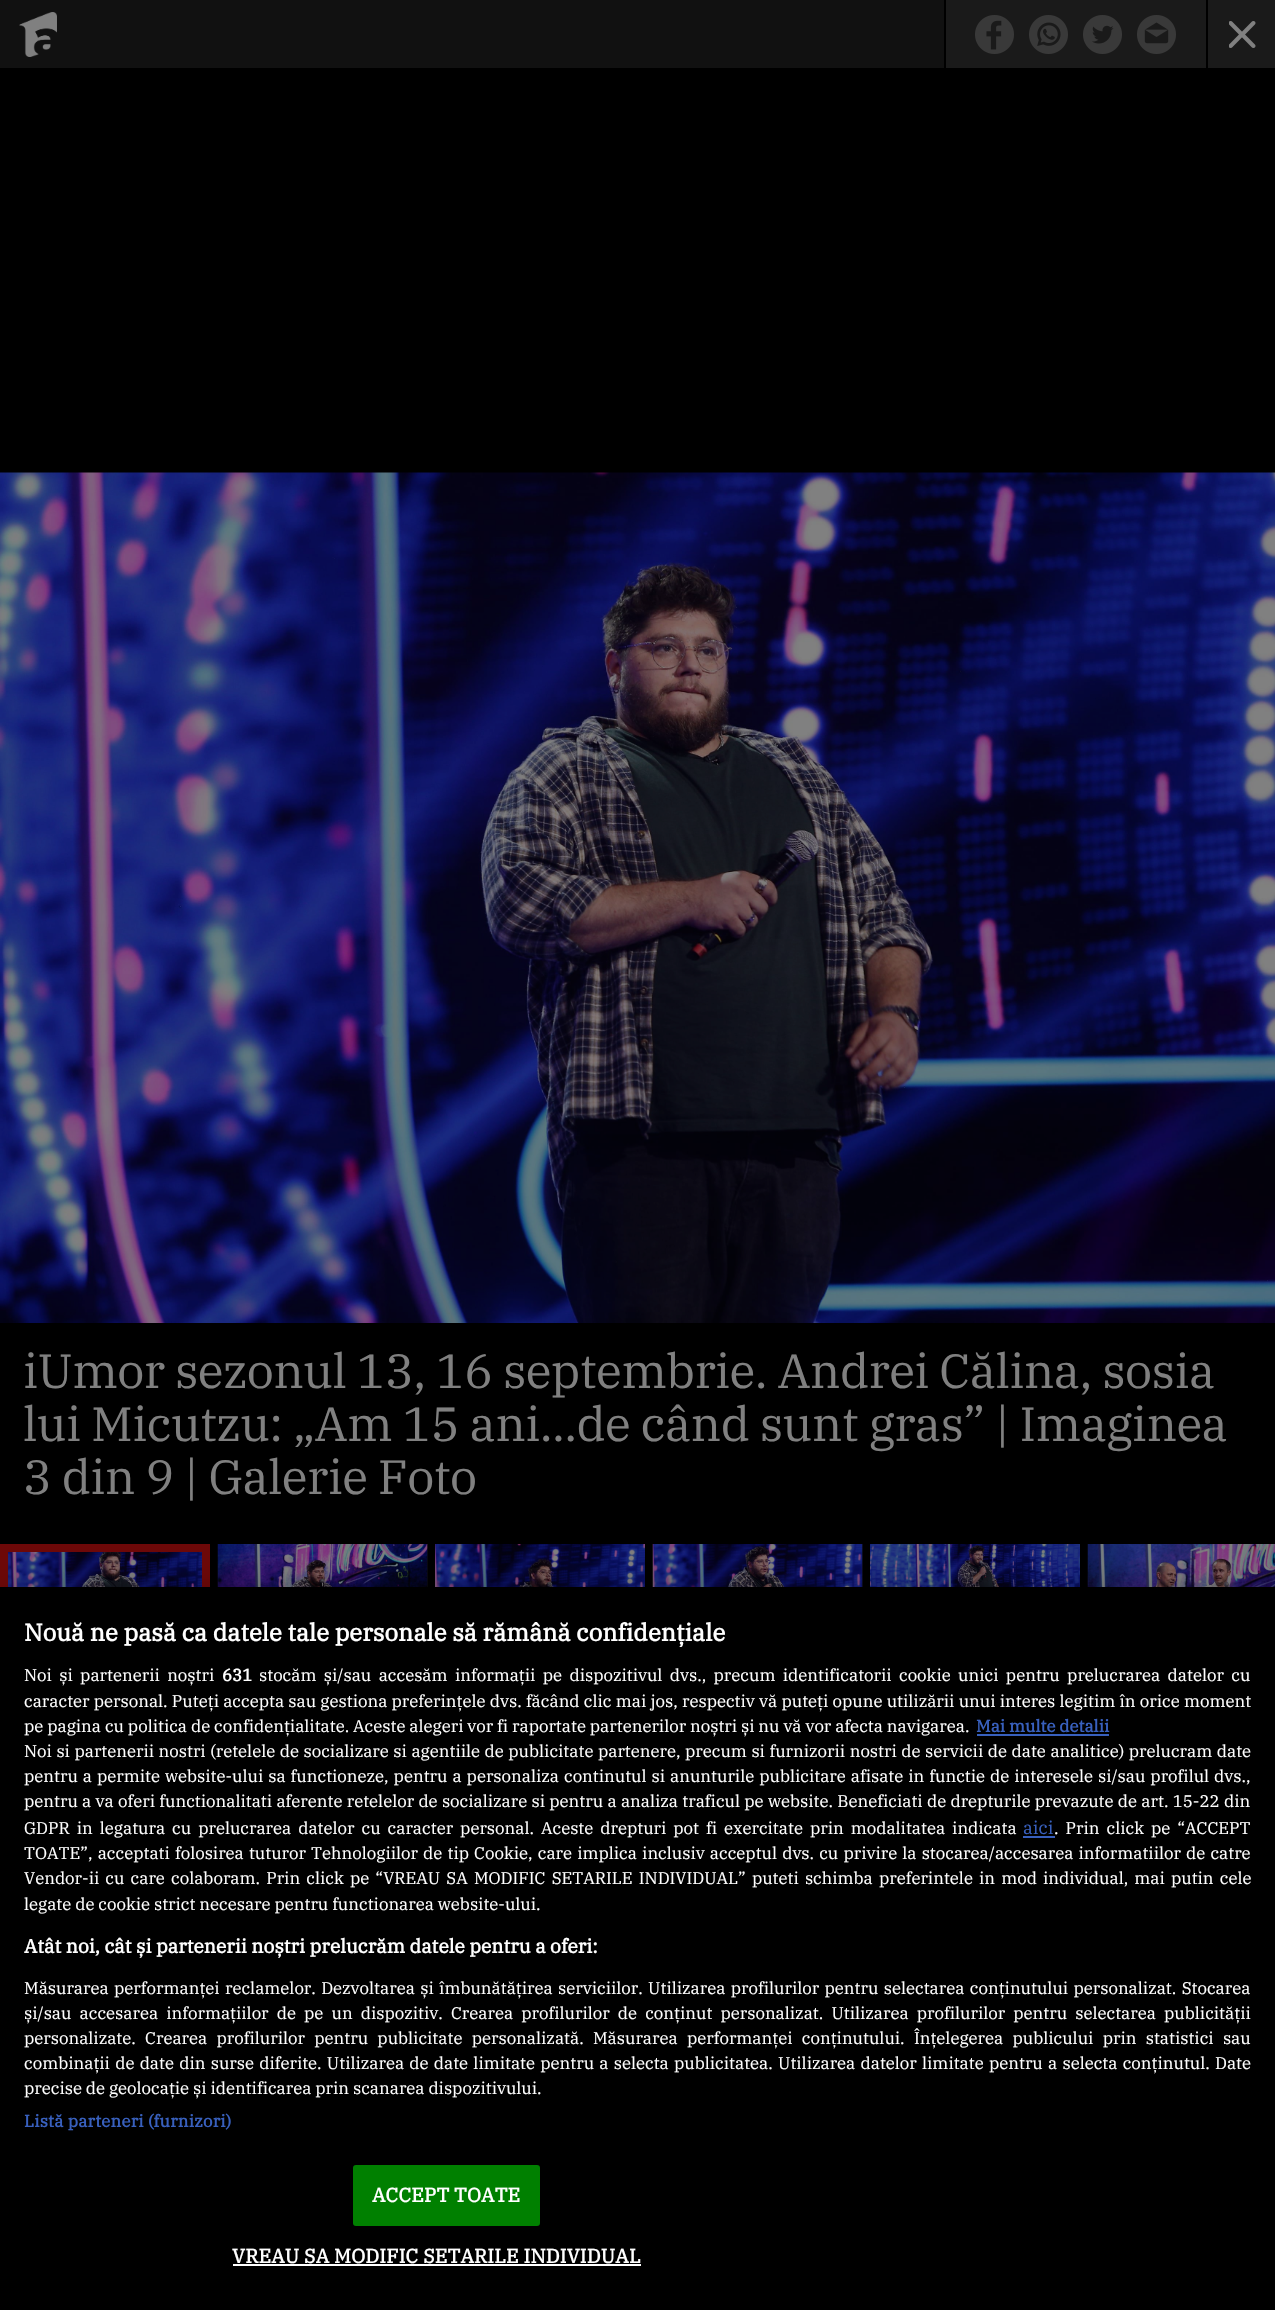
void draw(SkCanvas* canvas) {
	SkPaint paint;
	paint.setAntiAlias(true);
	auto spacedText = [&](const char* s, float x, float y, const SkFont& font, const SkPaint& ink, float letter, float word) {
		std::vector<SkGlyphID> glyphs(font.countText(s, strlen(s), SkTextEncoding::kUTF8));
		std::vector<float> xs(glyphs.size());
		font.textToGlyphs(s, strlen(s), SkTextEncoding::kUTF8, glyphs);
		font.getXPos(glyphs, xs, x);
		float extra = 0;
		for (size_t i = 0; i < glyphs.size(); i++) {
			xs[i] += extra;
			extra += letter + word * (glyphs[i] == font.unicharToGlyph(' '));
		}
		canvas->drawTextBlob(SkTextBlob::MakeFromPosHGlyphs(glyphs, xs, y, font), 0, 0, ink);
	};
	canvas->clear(0xff000000);
	paint.setColor(0xff111111);
	canvas->drawRect(SkRect::MakeXYWH(0, 0, 944, 68), paint);
	canvas->drawImageRect(SkImages::DeferredFromEncodedData(SkData::MakeFromFileName("img1.png")), SkRect::MakeXYWH(19, 12, 38, 45), SkSamplingOptions());
	paint.setColor(0xff1a1a1a);
	canvas->drawRect(SkRect::MakeXYWH(946, 0, 260, 68), paint);
	canvas->drawImageRect(SkImages::DeferredFromEncodedData(SkData::MakeFromFileName("img2.png")), SkRect::MakeXYWH(975, 15, 39, 39), SkSamplingOptions());
	canvas->drawImageRect(SkImages::DeferredFromEncodedData(SkData::MakeFromFileName("img3.png")), SkRect::MakeXYWH(1029, 15, 39, 39), SkSamplingOptions());
	canvas->drawImageRect(SkImages::DeferredFromEncodedData(SkData::MakeFromFileName("img4.png")), SkRect::MakeXYWH(1083, 15, 39, 39), SkSamplingOptions());
	canvas->drawImageRect(SkImages::DeferredFromEncodedData(SkData::MakeFromFileName("img5.png")), SkRect::MakeXYWH(1137, 15, 39, 39), SkSamplingOptions());
	canvas->drawRect(SkRect::MakeXYWH(1208, 0, 67, 68), paint);
	canvas->drawImageRect(SkImages::DeferredFromEncodedData(SkData::MakeFromFileName("img6.png")), SkRect::MakeXYWH(1229, 21, 27, 27), SkSamplingOptions());
	canvas->drawImageRect(SkImages::DeferredFromEncodedData(SkData::MakeFromFileName("img7.png")), SkRect::MakeXYWH(0, 472, 1275, 851), SkSamplingOptions());
	SkFont f1(fontMgr->matchFamilyStyle("IBM Plex Serif", SkFontStyle::Normal()), 48);
	f1.setSubpixel(true);
	paint.setColor(0xff808080);
	spacedText("iUmor sezonul 13, 16 septembrie. Andrei Călina, sosia", 23, 1388, f1, paint, -0.6, 0);
	spacedText("lui Micutzu: „Am 15 ani...de când sunt gras” | Imaginea", 23, 1441, f1, paint, -0.6, 0);
	spacedText("3 din 9 | Galerie Foto", 23, 1494, f1, paint, -0.6, 0);
	canvas->drawImageRect(SkImages::DeferredFromEncodedData(SkData::MakeFromFileName("img8.png")), SkRect::MakeXYWH(8, 1552, 194, 35), SkSamplingOptions());
	paint.setStroke(true);
	paint.setStrokeWidth(8);
	paint.setColor(0xff6d0808);
	canvas->drawRect(SkRect::MakeXYWH(4, 1548, 202, 112), paint);
	paint.setStroke(false);
	paint.setColor(0xff090909);
	canvas->drawRect(SkRect::MakeXYWH(427, 1544, 1, 43), paint);
	canvas->drawImageRect(SkImages::DeferredFromEncodedData(SkData::MakeFromFileName("img9.png")), SkRect::MakeXYWH(217, 1544, 211, 43), SkSamplingOptions());
	canvas->drawImageRect(SkImages::DeferredFromEncodedData(SkData::MakeFromFileName("img10.png")), SkRect::MakeXYWH(435, 1544, 210, 43), SkSamplingOptions());
	canvas->drawRect(SkRect::MakeXYWH(862, 1544, 1, 43), paint);
	canvas->drawImageRect(SkImages::DeferredFromEncodedData(SkData::MakeFromFileName("img11.png")), SkRect::MakeXYWH(652, 1544, 211, 43), SkSamplingOptions());
	canvas->drawImageRect(SkImages::DeferredFromEncodedData(SkData::MakeFromFileName("img12.png")), SkRect::MakeXYWH(870, 1544, 210, 43), SkSamplingOptions());
	canvas->drawImageRect(SkImages::DeferredFromEncodedData(SkData::MakeFromFileName("img13.png")), SkRect::MakeXYWH(1087, 1544, 188, 43), SkSamplingOptions());
	paint.setColor(0x33000000);
	paint.setMaskFilter(SkMaskFilter::MakeBlur(kNormal_SkBlurStyle, 13.5));
	canvas->drawRect(SkRect::MakeXYWH(0, 1587, 1275, 723), paint);
	paint.setMaskFilter(nullptr);
	paint.setColor(0xff000000);
	canvas->drawRect(SkRect::MakeXYWH(0, 1587, 210, 77), paint);
	SkFont f2(fontMgr->matchFamilyStyle("IBM Plex Serif", SkFontStyle::Bold()), 24);
	f2.setSubpixel(true);
	paint.setColor(0xffffffff);
	canvas->drawString("Nouă ne pasă ca datele tale personale să rămână confidențiale", 24, 1641, f2, paint);
	SkFont f3(fontMgr->matchFamilyStyle("IBM Plex Serif", SkFontStyle::Normal()), 16.8);
	f3.setSubpixel(true);
	spacedText("Noi și partenerii noștri", 24, 1681, f3, paint, 0, 3.5);
	SkFont f4(fontMgr->matchFamilyStyle("IBM Plex Serif", SkFontStyle::Bold()), 16.8);
	f4.setSubpixel(true);
	canvas->drawString("631", 222, 1681, f4, paint);
	spacedText("stocăm și/sau accesăm informații pe dispozitivul dvs., precum identificatorii cookie unici pentru prelucrarea datelor cu", 259, 1681, f3, paint, 0, 3.5);
	spacedText("caracter personal. Puteți accepta sau gestiona preferințele dvs. făcând clic mai jos, respectiv vă puteți opune utilizării unui interes legitim în orice moment", 24, 1707, f3, paint, 0, 0.35);
	canvas->drawString("pe pagina cu politica de confidențialitate. Aceste alegeri vor fi raportate partenerilor noștri și nu vă vor afecta navigarea.", 24, 1732, f3, paint);
	paint.setColor(0xff3860be);
	canvas->drawString("Mai multe detalii", 976, 1732, f4, paint);
	canvas->drawRect(SkRect::MakeXYWH(977, 1734, 132, 2), paint);
	paint.setColor(0xffffffff);
	spacedText("Noi si partenerii nostri (retelele de socializare si agentiile de publicitate partenere, precum si furnizorii nostri de servicii de date analitice) prelucram date", 24, 1757, f3, paint, 0, 0.65);
	spacedText("pentru a permite website-ului sa functioneze, pentru a personaliza continutul si anunturile publicitare afisate in functie de interesele si/sau profilul dvs.,", 24, 1782, f3, paint, 0, 1.1);
	spacedText("pentru a va oferi functionalitati aferente retelelor de socializare si pentru a analiza traficul pe website. Beneficiati de drepturile prevazute de art. 15-22 din", 24, 1807, f3, paint, 0, 0.4);
	spacedText("GDPR in legatura cu prelucrarea datelor cu caracter personal. Aceste drepturi pot fi exercitate prin modalitatea indicata", 24, 1834, f3, paint, 0, 3.1);
	SkFont f5(fontMgr->matchFamilyStyle("IBM Plex Serif", SkFontStyle::Normal()), 18);
	f5.setSubpixel(true);
	paint.setColor(0xff3860be);
	canvas->drawString("aici", 1023, 1834, f5, paint);
	canvas->drawRect(SkRect::MakeXYWH(1023, 1836, 32, 2), paint);
	paint.setColor(0xffffffff);
	spacedText(". Prin click pe “ACCEPT", 1054, 1834, f3, paint, 0, 3.1);
	spacedText("TOATE”, acceptati folosirea tuturor Tehnologiilor de tip Cookie, care implica inclusiv acceptul dvs. cu privire la stocarea/accesarea informatiilor de catre", 24, 1859, f3, paint, 0, 1.25);
	spacedText("Vendor-ii cu care colaboram. Prin click pe “VREAU SA MODIFIC SETARILE INDIVIDUAL” puteti schimba preferintele in mod individual, mai putin cele", 24, 1884, f3, paint, 0, 2.25);
	canvas->drawString("legate de cookie strict necesare pentru functionarea website-ului.", 24, 1910, f3, paint);
	SkFont f6(fontMgr->matchFamilyStyle("IBM Plex Serif", SkFontStyle::Bold()), 19.2);
	f6.setSubpixel(true);
	canvas->drawString("Atât noi, cât și partenerii noștri prelucrăm datele pentru a oferi:", 24, 1953, f6, paint);
	spacedText("Măsurarea performanței reclamelor. Dezvoltarea și îmbunătățirea serviciilor. Utilizarea profilurilor pentru selectarea conținutului personalizat. Stocarea", 24, 1994, f3, paint, 0, 1.5);
	spacedText("și/sau accesarea informațiilor de pe un dispozitiv. Crearea profilurilor de conținut personalizat. Utilizarea profilurilor pentru selectarea publicității", 24, 2019, f3, paint, 0, 4.25);
	spacedText("personalizate. Crearea profilurilor pentru publicitate personalizată. Măsurarea performanței conținutului. Înțelegerea publicului prin statistici sau", 24, 2044, f3, paint, 0, 5.4);
	spacedText("combinații de date din surse diferite. Utilizarea de date limitate pentru a selecta publicitatea. Utilizarea datelor limitate pentru a selecta conținutul. Date", 24, 2069, f3, paint, 0, 1.35);
	canvas->drawString("precise de geolocație și identificarea prin scanarea dispozitivului.", 24, 2094, f3, paint);
	paint.setColor(0xff3860be);
	spacedText("Listă parteneri (furnizori)", 24, 2127, f4, paint, 0.2, 0);
	paint.setColor(0xff008000);
	canvas->drawRoundRect(SkRect::MakeXYWH(354, 2166, 185, 59), 2, 2, paint);
	paint.setStroke(true);
	paint.setStrokeWidth(2);
	canvas->drawRoundRect(SkRect::MakeXYWH(354, 2166, 185, 59), 2, 2, paint);
	SkFont f7(fontMgr->matchFamilyStyle("IBM Plex Serif", SkFontStyle::Bold()), 19.5);
	f7.setSubpixel(true);
	paint.setStroke(false);
	paint.setColor(0xffffffff);
	spacedText("ACCEPT TOATE", 372, 2202, f7, paint, 0.2, 0);
	spacedText("VREAU SA MODIFIC SETARILE INDIVIDUAL", 232, 2263, f7, paint, 0.2, 0);
	canvas->drawRect(SkRect::MakeXYWH(233, 2264, 408, 2), paint);
}
